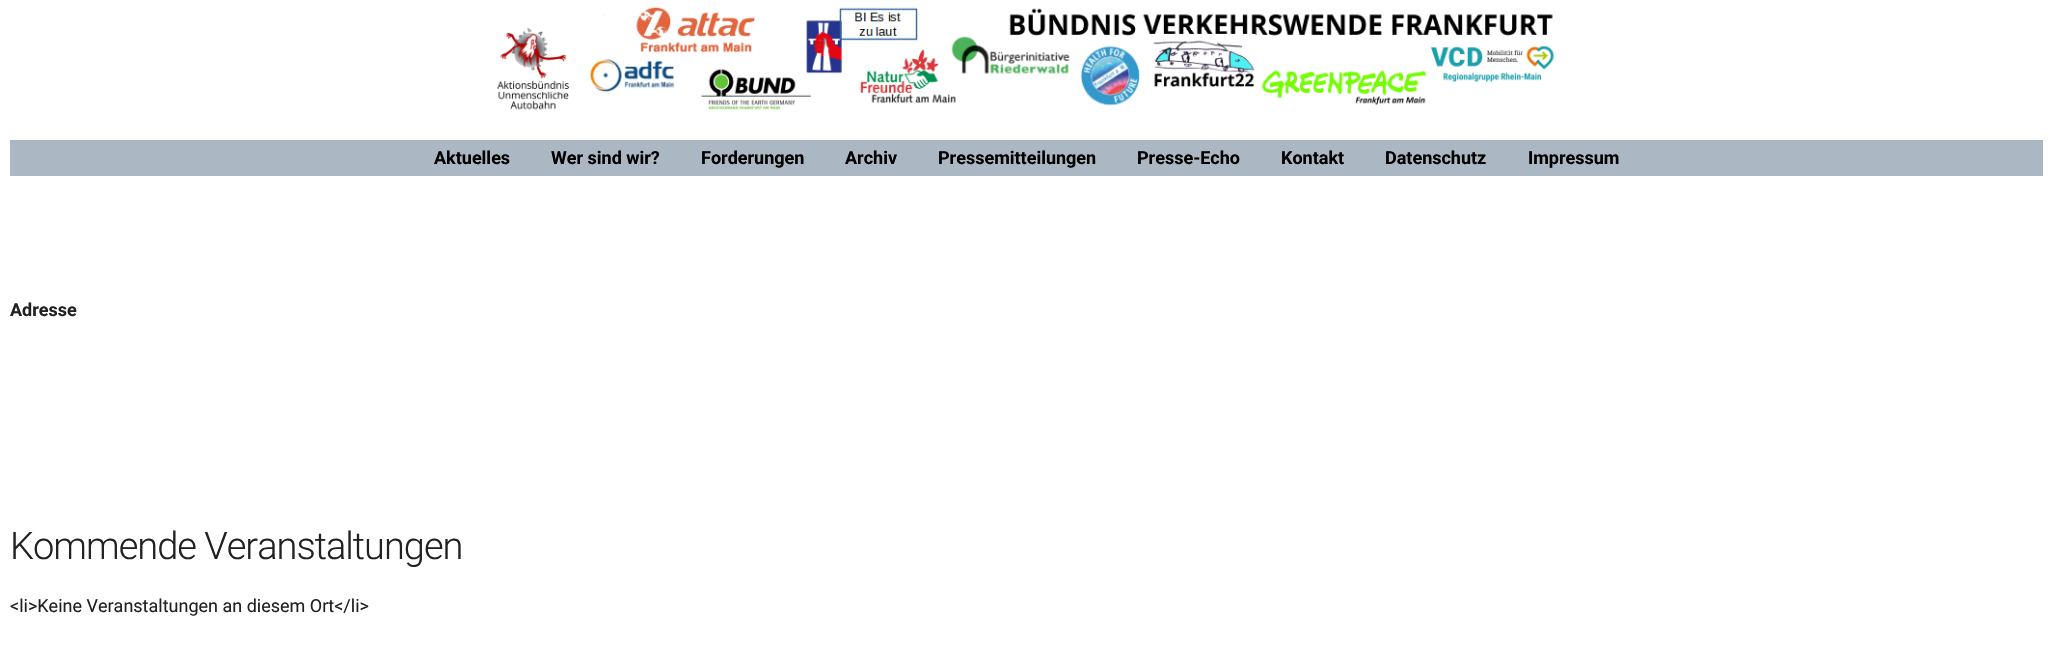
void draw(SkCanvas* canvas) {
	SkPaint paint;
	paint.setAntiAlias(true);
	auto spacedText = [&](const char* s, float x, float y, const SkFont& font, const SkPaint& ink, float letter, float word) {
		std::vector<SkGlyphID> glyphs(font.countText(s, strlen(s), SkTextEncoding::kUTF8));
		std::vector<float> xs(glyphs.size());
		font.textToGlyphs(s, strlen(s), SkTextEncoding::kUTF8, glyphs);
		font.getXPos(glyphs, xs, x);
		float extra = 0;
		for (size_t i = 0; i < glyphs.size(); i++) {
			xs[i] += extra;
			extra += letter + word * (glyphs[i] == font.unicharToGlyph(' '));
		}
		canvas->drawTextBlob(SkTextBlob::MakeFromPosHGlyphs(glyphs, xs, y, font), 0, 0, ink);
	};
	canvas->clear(0xffffffff);
	canvas->drawImageRect(SkImages::DeferredFromEncodedData(SkData::MakeFromFileName("img1.png")), SkRect::MakeXYWH(497, 7, 1057, 103), SkSamplingOptions());
	paint.setColor(0xffabb8c3);
	canvas->drawRect(SkRect::MakeXYWH(10, 140, 2033, 36), paint);
	SkFont f1(fontMgr->matchFamilyStyle("Roboto", SkFontStyle::Bold()), 18);
	f1.setSubpixel(true);
	paint.setColor(0xff000000);
	canvas->drawString("Aktuelles", 434, 164, f1, paint);
	canvas->drawString("Wer sind wir?", 551, 164, f1, paint);
	canvas->drawString("Forderungen", 701, 164, f1, paint);
	canvas->drawString("Archiv", 845, 164, f1, paint);
	canvas->drawString("Pressemitteilungen", 938, 164, f1, paint);
	canvas->drawString("Presse-Echo", 1137, 164, f1, paint);
	canvas->drawString("Kontakt", 1281, 164, f1, paint);
	canvas->drawString("Datenschutz", 1385, 164, f1, paint);
	canvas->drawString("Impressum", 1528, 164, f1, paint);
	paint.setColor(0xff212121);
	canvas->drawString("Adresse", 10, 316, f1, paint);
	SkFont f2(fontMgr->matchFamilyStyle("Roboto", SkFontStyle(300, SkFontStyle::kNormal_Width, SkFontStyle::kUpright_Slant)), 38);
	f2.setSubpixel(true);
	spacedText("Kommende Veranstaltungen", 10, 559, f2, paint, -1, 0);
	SkFont f3(fontMgr->matchFamilyStyle("Roboto", SkFontStyle::Normal()), 18);
	f3.setSubpixel(true);
	canvas->drawString("<li>Keine Veranstaltungen an diesem Ort</li>", 10, 612, f3, paint);
}
